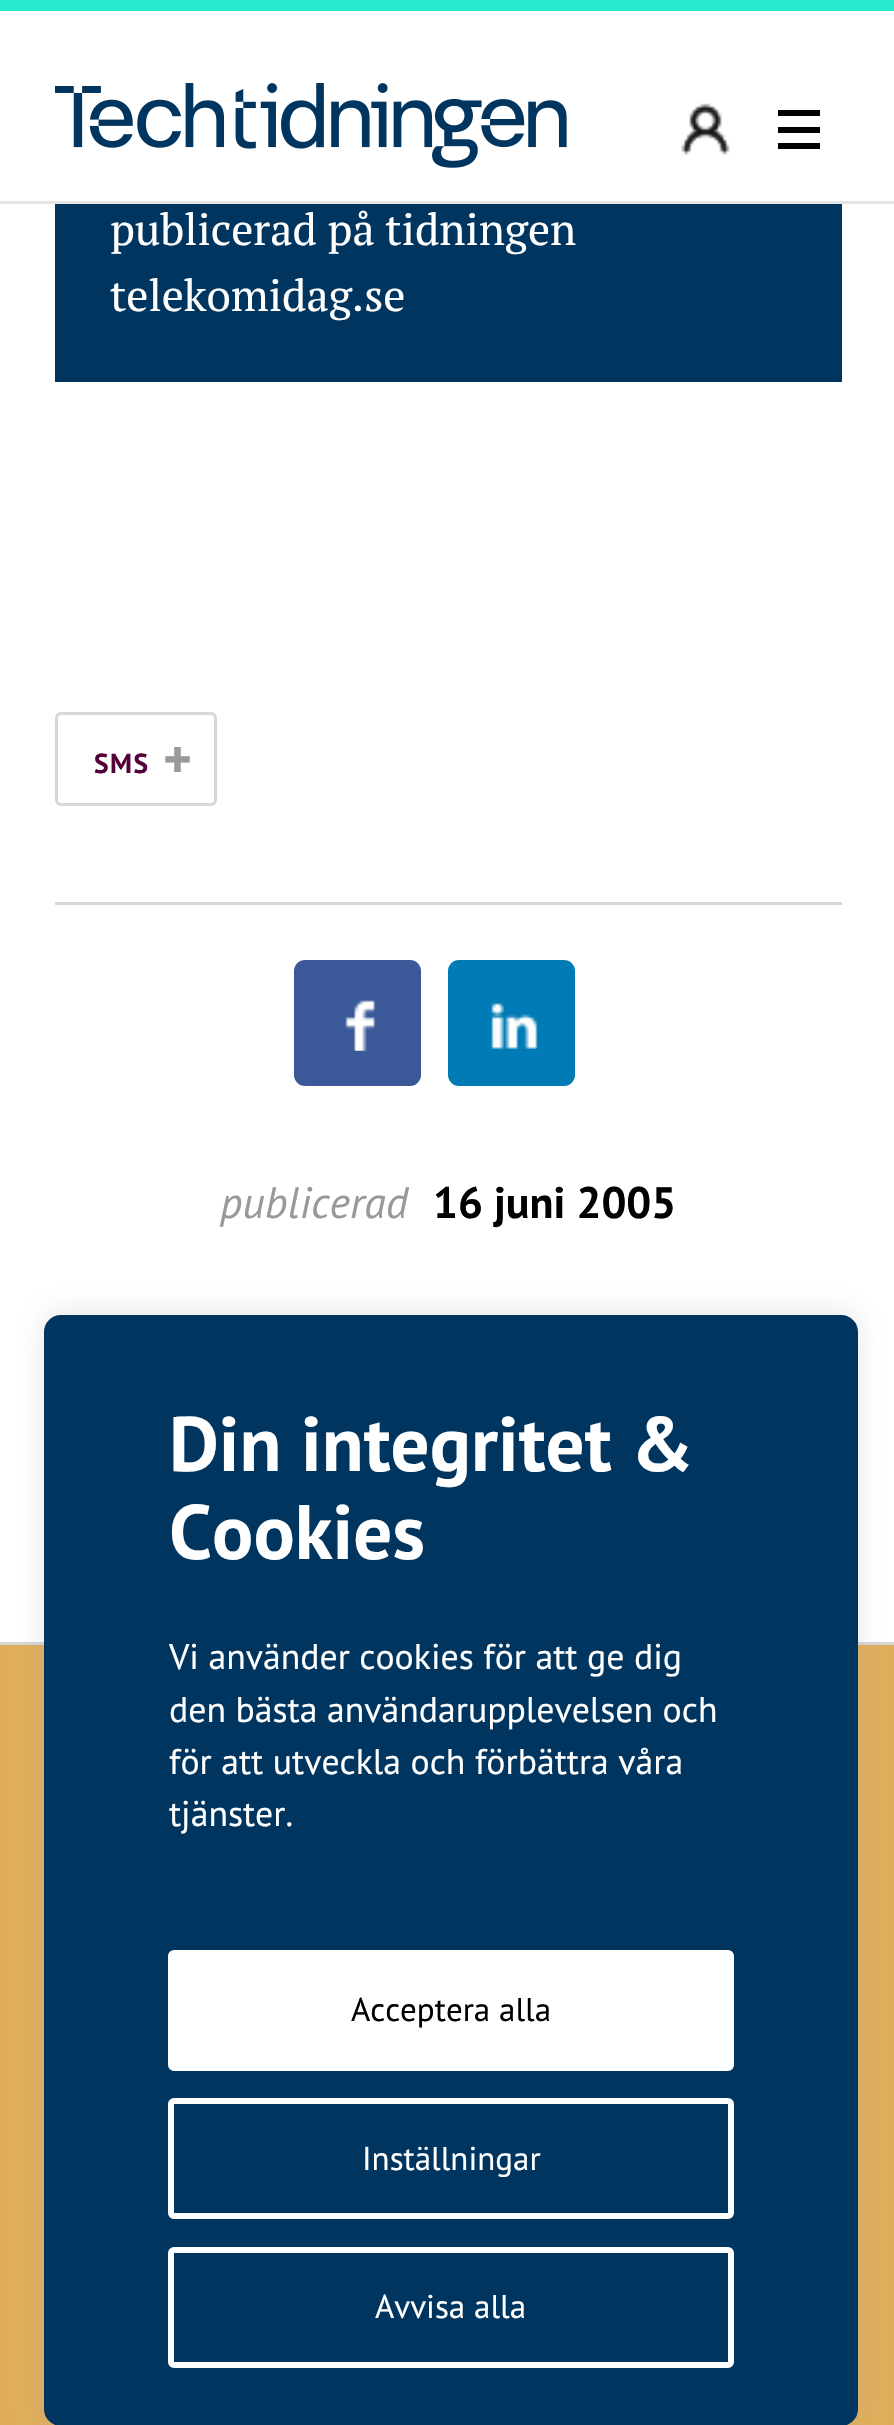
void draw(SkCanvas* canvas) {
	SkPaint paint;
	paint.setAntiAlias(true);
	auto spacedText = [&](const char* s, float x, float y, const SkFont& font, const SkPaint& ink, float letter, float word) {
		std::vector<SkGlyphID> glyphs(font.countText(s, strlen(s), SkTextEncoding::kUTF8));
		std::vector<float> xs(glyphs.size());
		font.textToGlyphs(s, strlen(s), SkTextEncoding::kUTF8, glyphs);
		font.getXPos(glyphs, xs, x);
		float extra = 0;
		for (size_t i = 0; i < glyphs.size(); i++) {
			xs[i] += extra;
			extra += letter + word * (glyphs[i] == font.unicharToGlyph(' '));
		}
		canvas->drawTextBlob(SkTextBlob::MakeFromPosHGlyphs(glyphs, xs, y, font), 0, 0, ink);
	};
	canvas->clear(0xffffffff);
	paint.setColor(0xffe4e4e4);
	canvas->drawRect(SkRect::MakeXYWH(0, 201, 894, 3), paint);
	paint.setColor(0xff27e9cf);
	canvas->drawRect(SkRect::MakeXYWH(0, 0, 894, 11), paint);
	canvas->drawImageRect(SkImages::DeferredFromEncodedData(SkData::MakeFromFileName("img1.png")), SkRect::MakeXYWH(55, 83, 512, 85), SkSamplingOptions());
	canvas->drawImageRect(SkImages::DeferredFromEncodedData(SkData::MakeFromFileName("img2.png")), SkRect::MakeXYWH(681, 103, 49, 52), SkSamplingOptions());
	paint.setColor(0xff000000);
	canvas->drawRect(SkRect::MakeXYWH(778, 110, 42, 6), paint);
	canvas->drawRect(SkRect::MakeXYWH(778, 127, 42, 6), paint);
	canvas->drawRect(SkRect::MakeXYWH(778, 143, 42, 6), paint);
	paint.setColor(0xff00355f);
	canvas->drawRect(SkRect::MakeXYWH(55, 204, 787, 178), paint);
	SkFont f1(fontMgr->matchFamilyStyle("PT Serif", SkFontStyle::Normal()), 44);
	f1.setSubpixel(true);
	paint.setColor(0xffffffff);
	canvas->drawString("publicerad på tidningen", 110, 245, f1, paint);
	canvas->drawString("telekomidag.se", 110, 311, f1, paint);
	paint.setStroke(true);
	paint.setStrokeWidth(3);
	paint.setColor(0xffd7d7d8);
	canvas->drawRoundRect(SkRect::MakeXYWH(56.5, 713.5, 159, 91), 4.5, 4.5, paint);
	SkFont f2(fontMgr->matchFamilyStyle("PT Sans", SkFontStyle::Bold()), 27.5);
	f2.setSubpixel(true);
	paint.setStroke(false);
	paint.setColor(0xff54003b);
	spacedText("SMS", 94, 773, f2, paint, 1.5, 0);
	SkFont f3(fontMgr->matchFamilyStyle("PT Sans", SkFontStyle::Bold()), 55);
	f3.setSubpixel(true);
	paint.setColor(0xff999999);
	spacedText("+", 163, 778, f3, paint, 1.5, 0);
	paint.setColor(0xffd7d7d8);
	canvas->drawRect(SkRect::MakeXYWH(55, 902, 787, 3), paint);
	paint.setColor(0xff3b5998);
	canvas->drawRoundRect(SkRect::MakeXYWH(294, 960, 127, 126), 11, 11, paint);
	canvas->drawImageRect(SkImages::DeferredFromEncodedData(SkData::MakeFromFileName("img3.png")), SkRect::MakeXYWH(345, 1000, 30, 51), SkSamplingOptions());
	paint.setColor(0xff007bb5);
	canvas->drawRoundRect(SkRect::MakeXYWH(448, 960, 127, 126), 11, 11, paint);
	canvas->drawImageRect(SkImages::DeferredFromEncodedData(SkData::MakeFromFileName("img4.png")), SkRect::MakeXYWH(491, 1003, 47, 46), SkSamplingOptions());
	SkFont f4(fontMgr->matchFamilyStyle("PT Sans", SkFontStyle::Italic()), 44);
	f4.setSubpixel(true);
	paint.setColor(0xff999999);
	canvas->drawString("publicerad", 220, 1218, f4, paint);
	SkFont f5(fontMgr->matchFamilyStyle("PT Sans", SkFontStyle::Bold()), 44);
	f5.setSubpixel(true);
	paint.setColor(0xff000000);
	canvas->drawString("16 juni 2005", 433, 1218, f5, paint);
	paint.setColor(0xffd5d5d6);
	canvas->drawRect(SkRect::MakeXYWH(0, 1642, 894, 3), paint);
	paint.setColor(0xffdfad5a);
	canvas->drawRect(SkRect::MakeXYWH(0, 1645, 894, 780), paint);
	paint.setColor(0x4dacabab);
	paint.setMaskFilter(SkMaskFilter::MakeBlur(kNormal_SkBlurStyle, 14));
	canvas->drawRoundRect(SkRect::MakeXYWH(44, 1312, 814, 1111), 17, 17, paint);
	paint.setMaskFilter(nullptr);
	paint.setColor(0xff00355f);
	canvas->drawRoundRect(SkRect::MakeXYWH(45.5, 1316.5, 811, 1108), 15.5, 15.5, paint);
	paint.setStroke(true);
	canvas->drawRoundRect(SkRect::MakeXYWH(45.5, 1316.5, 811, 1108), 15.5, 15.5, paint);
	SkFont f6(fontMgr->matchFamilyStyle("PT Sans", SkFontStyle::Bold()), 77);
	f6.setSubpixel(true);
	paint.setStroke(false);
	paint.setColor(0xffffffff);
	canvas->drawString("Din integritet &", 169, 1471, f6, paint);
	canvas->drawString("Cookies", 169, 1559, f6, paint);
	SkFont f7(fontMgr->matchFamilyStyle("PT Sans", SkFontStyle::Normal()), 35.75);
	f7.setSubpixel(true);
	canvas->drawString("Vi använder cookies för att ge dig", 169, 1669, f7, paint);
	canvas->drawString("den bästa användarupplevelsen och", 169, 1722, f7, paint);
	canvas->drawString("för att utveckla och förbättra våra", 169, 1774, f7, paint);
	canvas->drawString("tjänster.", 169, 1826, f7, paint);
	canvas->drawRoundRect(SkRect::MakeXYWH(171, 1953, 560, 115), 3, 3, paint);
	paint.setStroke(true);
	paint.setStrokeWidth(6);
	canvas->drawRoundRect(SkRect::MakeXYWH(171, 1953, 560, 115), 3, 3, paint);
	SkFont f8(fontMgr->matchFamilyStyle("PT Sans", SkFontStyle::Normal()), 33);
	f8.setSubpixel(true);
	paint.setStroke(false);
	paint.setColor(0xff000000);
	canvas->drawString("Acceptera alla", 351, 2021, f8, paint);
	paint.setStroke(true);
	paint.setColor(0xffffffff);
	canvas->drawRoundRect(SkRect::MakeXYWH(171, 2101, 560, 115), 3, 3, paint);
	paint.setStroke(false);
	canvas->drawString("Inställningar", 362, 2170, f8, paint);
	paint.setStroke(true);
	canvas->drawRoundRect(SkRect::MakeXYWH(171, 2250, 560, 115), 3, 3, paint);
	paint.setStroke(false);
	canvas->drawString("Avvisa alla", 375, 2318, f8, paint);
}
